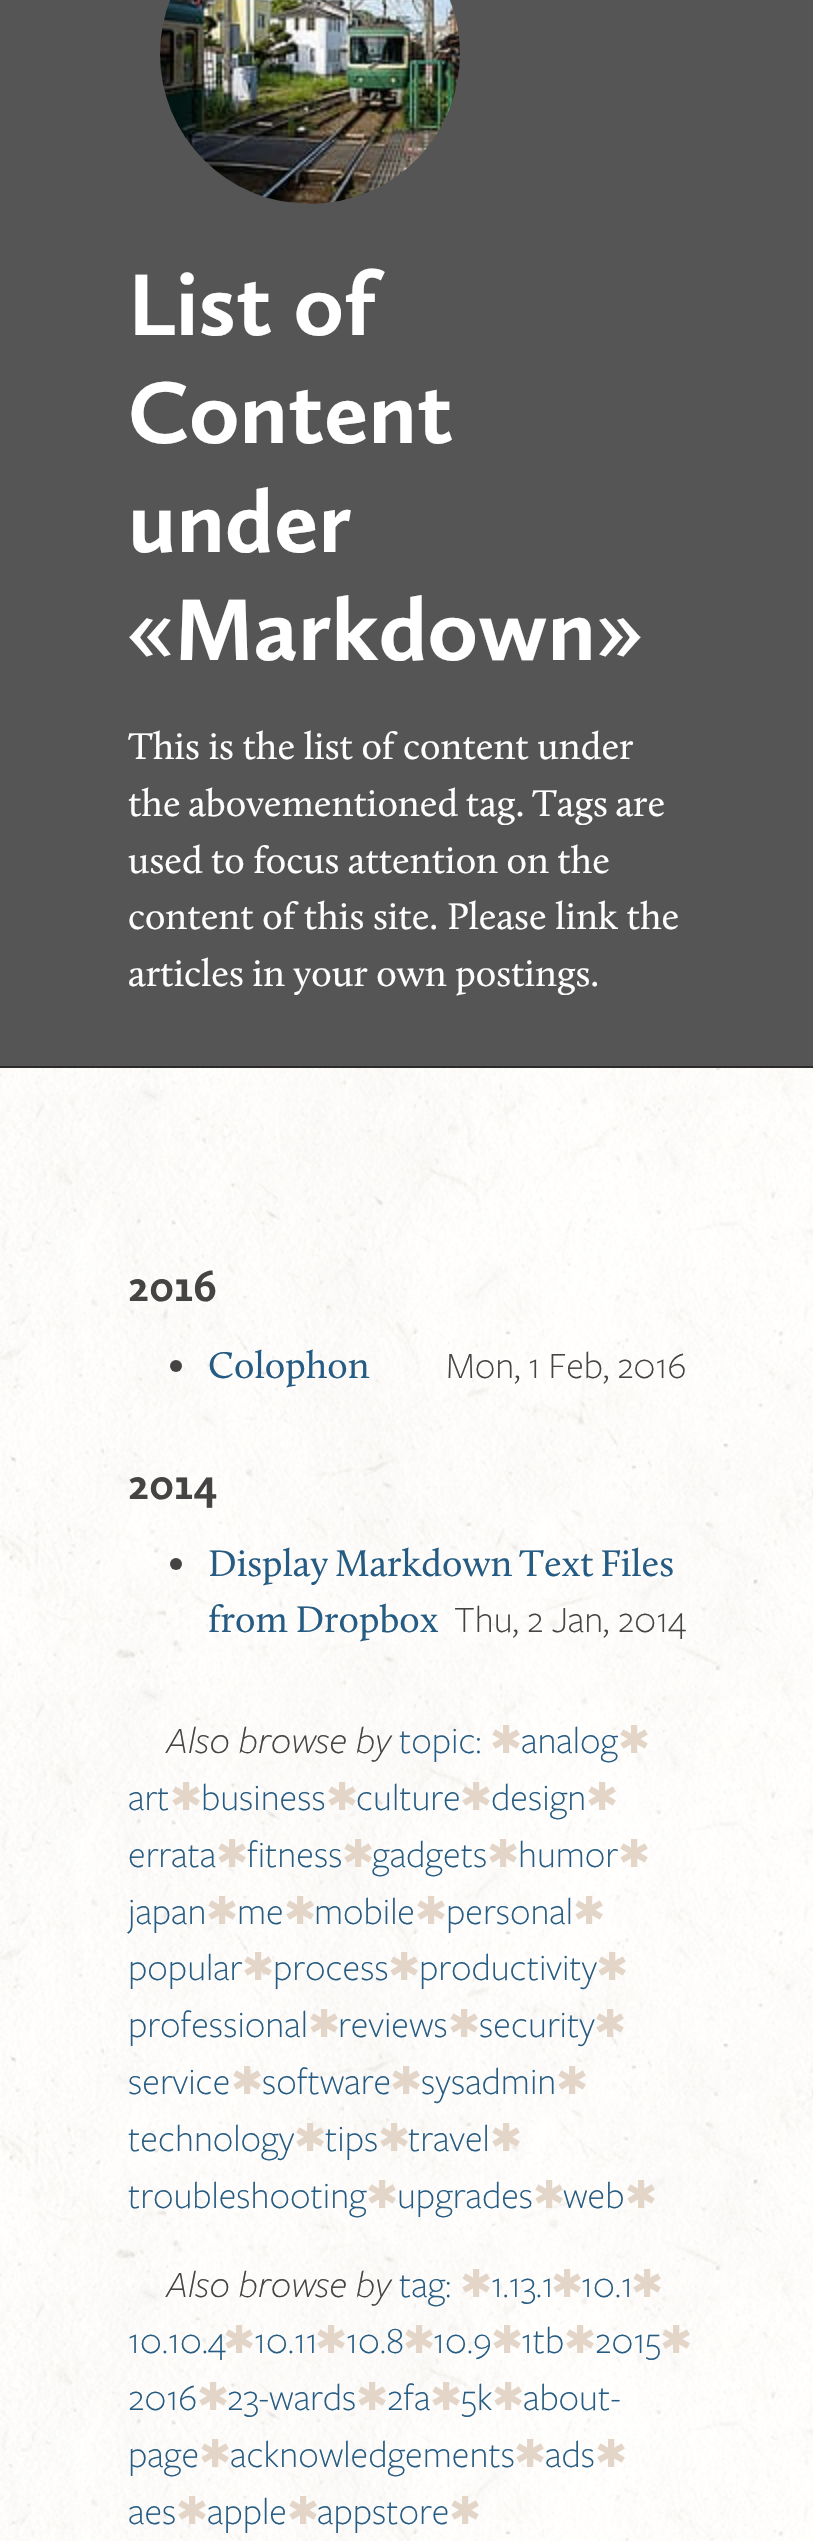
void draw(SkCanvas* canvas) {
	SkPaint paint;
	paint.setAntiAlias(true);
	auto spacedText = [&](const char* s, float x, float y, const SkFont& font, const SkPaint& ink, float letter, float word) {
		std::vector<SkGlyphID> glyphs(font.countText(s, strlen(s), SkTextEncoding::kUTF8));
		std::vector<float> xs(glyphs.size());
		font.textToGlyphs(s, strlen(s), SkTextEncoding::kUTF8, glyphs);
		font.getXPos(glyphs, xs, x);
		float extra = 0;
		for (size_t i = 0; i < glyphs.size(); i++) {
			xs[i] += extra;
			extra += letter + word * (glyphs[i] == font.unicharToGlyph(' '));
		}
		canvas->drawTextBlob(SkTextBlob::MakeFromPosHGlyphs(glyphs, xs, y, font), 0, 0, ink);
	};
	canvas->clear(0xff555555);
	paint.setColor(0xff2b2b2b);
	canvas->drawRect(SkRect::MakeXYWH(0, 1066, 813, 2), paint);
	canvas->drawImageRect(SkImages::DeferredFromEncodedData(SkData::MakeFromFileName("img1.png")), SkRect::MakeXYWH(160, 0, 300, 204), SkSamplingOptions());
	SkFont f1(fontMgr->matchFamilyStyle("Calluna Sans", SkFontStyle::Bold()), 90.5);
	f1.setSubpixel(true);
	paint.setColor(0xffffffff);
	canvas->drawString("List of", 128, 335, f1, paint);
	canvas->drawString("Content", 128, 443, f1, paint);
	canvas->drawString("under", 128, 552, f1, paint);
	canvas->drawString("«Markdown»", 128, 660, f1, paint);
	SkFont f2(fontMgr->matchFamilyStyle("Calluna", SkFontStyle::Normal()), 38.4);
	f2.setSubpixel(true);
	canvas->drawString("This is the list of content under", 128, 759, f2, paint);
	spacedText("the abovementioned tag. Tags are", 128, 816, f2, paint, 0, -1);
	spacedText("used to focus attention on the", 128, 873, f2, paint, 0, -0.25);
	canvas->drawString("content of this site. Please link the", 128, 929, f2, paint);
	canvas->drawString("articles in your own postings.", 128, 986, f2, paint);
	canvas->drawImageRect(SkImages::DeferredFromEncodedData(SkData::MakeFromFileName("img2.png")), SkRect::MakeXYWH(0, 1068, 813, 1473), SkSamplingOptions());
	SkFont f3(fontMgr->matchFamilyStyle("Calluna Sans", SkFontStyle::Bold()), 45);
	f3.setSubpixel(true);
	paint.setColor(0xff444444);
	canvas->drawString("2016", 128, 1301, f3, paint);
	canvas->drawCircle(176, 1366, 6, paint);
	paint.setColor(0xff265c83);
	canvas->drawString("Colophon", 208, 1378, f2, paint);
	SkFont f4(fontMgr->matchFamilyStyle("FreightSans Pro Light", SkFontStyle(300, SkFontStyle::kNormal_Width, SkFontStyle::kUpright_Slant)), 38.4);
	f4.setSubpixel(true);
	paint.setColor(0xff444444);
	spacedText("Mon, 1 Feb, 2016", 446, 1378, f4, paint, 0, -0.5);
	canvas->drawString("2014", 128, 1499, f3, paint);
	canvas->drawCircle(176, 1564, 6, paint);
	paint.setColor(0xff265c83);
	spacedText("Display Markdown Text Files", 208, 1576, f2, paint, 0, -2);
	spacedText("from Dropbox", 208, 1632, f2, paint, 0, -1);
	paint.setColor(0xff444444);
	canvas->drawString("Thu, 2 Jan, 2014", 454, 1632, f4, paint);
	SkFont f5(fontMgr->matchFamilyStyle("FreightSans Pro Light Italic", SkFontStyle(300, SkFontStyle::kNormal_Width, SkFontStyle::kItalic_Slant)), 38.4);
	f5.setSubpixel(true);
	canvas->drawString("Also browse by", 166, 1753, f5, paint);
	paint.setColor(0xff265c83);
	canvas->drawString("topic:", 399, 1753, f4, paint);
	SkFont f6(fontMgr->matchFamilyStyle("DejaVu Sans", SkFontStyle::Normal()), 38.4);
	f6.setSubpixel(true);
	paint.setColor(0xffe3d5c7);
	canvas->drawString("✱", 490, 1753, f6, paint);
	paint.setColor(0xff265c83);
	canvas->drawString("analog", 521, 1753, f4, paint);
	paint.setColor(0xffe3d5c7);
	canvas->drawString("✱", 618, 1753, f6, paint);
	paint.setColor(0xff265c83);
	canvas->drawString("art", 128, 1810, f4, paint);
	paint.setColor(0xffe3d5c7);
	canvas->drawString("✱", 170, 1810, f6, paint);
	paint.setColor(0xff265c83);
	canvas->drawString("business", 201, 1810, f4, paint);
	paint.setColor(0xffe3d5c7);
	canvas->drawString("✱", 326, 1810, f6, paint);
	paint.setColor(0xff265c83);
	canvas->drawString("culture", 356, 1810, f4, paint);
	paint.setColor(0xffe3d5c7);
	canvas->drawString("✱", 460, 1810, f6, paint);
	paint.setColor(0xff265c83);
	canvas->drawString("design", 491, 1810, f4, paint);
	paint.setColor(0xffe3d5c7);
	canvas->drawString("✱", 586, 1810, f6, paint);
	paint.setColor(0xff265c83);
	canvas->drawString("errata", 128, 1867, f4, paint);
	paint.setColor(0xffe3d5c7);
	canvas->drawString("✱", 216, 1867, f6, paint);
	paint.setColor(0xff265c83);
	canvas->drawString("fitness", 247, 1867, f4, paint);
	paint.setColor(0xffe3d5c7);
	canvas->drawString("✱", 342, 1867, f6, paint);
	paint.setColor(0xff265c83);
	canvas->drawString("gadgets", 372, 1867, f4, paint);
	paint.setColor(0xffe3d5c7);
	canvas->drawString("✱", 487, 1867, f6, paint);
	paint.setColor(0xff265c83);
	canvas->drawString("humor", 518, 1867, f4, paint);
	paint.setColor(0xffe3d5c7);
	canvas->drawString("✱", 618, 1867, f6, paint);
	paint.setColor(0xff265c83);
	canvas->drawString("japan", 128, 1924, f4, paint);
	paint.setColor(0xffe3d5c7);
	canvas->drawString("✱", 206, 1924, f6, paint);
	paint.setColor(0xff265c83);
	canvas->drawString("me", 237, 1924, f4, paint);
	paint.setColor(0xffe3d5c7);
	canvas->drawString("✱", 284, 1924, f6, paint);
	paint.setColor(0xff265c83);
	canvas->drawString("mobile", 314, 1924, f4, paint);
	paint.setColor(0xffe3d5c7);
	canvas->drawString("✱", 415, 1924, f6, paint);
	paint.setColor(0xff265c83);
	canvas->drawString("personal", 446, 1924, f4, paint);
	paint.setColor(0xffe3d5c7);
	canvas->drawString("✱", 573, 1924, f6, paint);
	paint.setColor(0xff265c83);
	canvas->drawString("popular", 128, 1980, f4, paint);
	paint.setColor(0xffe3d5c7);
	canvas->drawString("✱", 242, 1980, f6, paint);
	paint.setColor(0xff265c83);
	canvas->drawString("process", 273, 1980, f4, paint);
	paint.setColor(0xffe3d5c7);
	canvas->drawString("✱", 388, 1980, f6, paint);
	paint.setColor(0xff265c83);
	canvas->drawString("productivity", 419, 1980, f4, paint);
	paint.setColor(0xffe3d5c7);
	canvas->drawString("✱", 596, 1980, f6, paint);
	paint.setColor(0xff265c83);
	canvas->drawString("professional", 128, 2037, f4, paint);
	paint.setColor(0xffe3d5c7);
	canvas->drawString("✱", 308, 2037, f6, paint);
	paint.setColor(0xff265c83);
	canvas->drawString("reviews", 338, 2037, f4, paint);
	paint.setColor(0xffe3d5c7);
	canvas->drawString("✱", 448, 2037, f6, paint);
	paint.setColor(0xff265c83);
	canvas->drawString("security", 479, 2037, f4, paint);
	paint.setColor(0xffe3d5c7);
	canvas->drawString("✱", 594, 2037, f6, paint);
	paint.setColor(0xff265c83);
	canvas->drawString("service", 128, 2094, f4, paint);
	paint.setColor(0xffe3d5c7);
	canvas->drawString("✱", 231, 2094, f6, paint);
	paint.setColor(0xff265c83);
	canvas->drawString("software", 262, 2094, f4, paint);
	paint.setColor(0xffe3d5c7);
	canvas->drawString("✱", 390, 2094, f6, paint);
	paint.setColor(0xff265c83);
	canvas->drawString("sysadmin", 421, 2094, f4, paint);
	paint.setColor(0xffe3d5c7);
	canvas->drawString("✱", 556, 2094, f6, paint);
	paint.setColor(0xff265c83);
	canvas->drawString("technology", 128, 2151, f4, paint);
	paint.setColor(0xffe3d5c7);
	canvas->drawString("✱", 294, 2151, f6, paint);
	paint.setColor(0xff265c83);
	canvas->drawString("tips", 325, 2151, f4, paint);
	paint.setColor(0xffe3d5c7);
	canvas->drawString("✱", 378, 2151, f6, paint);
	paint.setColor(0xff265c83);
	canvas->drawString("travel", 408, 2151, f4, paint);
	paint.setColor(0xffe3d5c7);
	canvas->drawString("✱", 490, 2151, f6, paint);
	paint.setColor(0xff265c83);
	canvas->drawString("troubleshooting", 128, 2208, f4, paint);
	paint.setColor(0xffe3d5c7);
	canvas->drawString("✱", 366, 2208, f6, paint);
	paint.setColor(0xff265c83);
	canvas->drawString("upgrades", 397, 2208, f4, paint);
	paint.setColor(0xffe3d5c7);
	canvas->drawString("✱", 533, 2208, f6, paint);
	paint.setColor(0xff265c83);
	canvas->drawString("web", 563, 2208, f4, paint);
	paint.setColor(0xffe3d5c7);
	canvas->drawString("✱", 625, 2208, f6, paint);
	paint.setColor(0xff444444);
	canvas->drawString("Also browse by", 166, 2297, f5, paint);
	paint.setColor(0xff265c83);
	canvas->drawString("tag:", 399, 2297, f4, paint);
	paint.setColor(0xffe3d5c7);
	canvas->drawString("✱", 460, 2297, f6, paint);
	paint.setColor(0xff265c83);
	canvas->drawString("1.13.1", 491, 2297, f4, paint);
	paint.setColor(0xffe3d5c7);
	canvas->drawString("✱", 551, 2297, f6, paint);
	paint.setColor(0xff265c83);
	canvas->drawString("10.1", 581, 2297, f4, paint);
	paint.setColor(0xffe3d5c7);
	canvas->drawString("✱", 631, 2297, f6, paint);
	paint.setColor(0xff265c83);
	canvas->drawString("10.10.4", 128, 2353, f4, paint);
	paint.setColor(0xffe3d5c7);
	canvas->drawString("✱", 223, 2353, f6, paint);
	paint.setColor(0xff265c83);
	canvas->drawString("10.11", 254, 2353, f4, paint);
	paint.setColor(0xffe3d5c7);
	canvas->drawString("✱", 315, 2353, f6, paint);
	paint.setColor(0xff265c83);
	canvas->drawString("10.8", 346, 2353, f4, paint);
	paint.setColor(0xffe3d5c7);
	canvas->drawString("✱", 403, 2353, f6, paint);
	paint.setColor(0xff265c83);
	canvas->drawString("10.9", 433, 2353, f4, paint);
	paint.setColor(0xffe3d5c7);
	canvas->drawString("✱", 491, 2353, f6, paint);
	paint.setColor(0xff265c83);
	canvas->drawString("1tb", 521, 2353, f4, paint);
	paint.setColor(0xffe3d5c7);
	canvas->drawString("✱", 564, 2353, f6, paint);
	paint.setColor(0xff265c83);
	canvas->drawString("2015", 595, 2353, f4, paint);
	paint.setColor(0xffe3d5c7);
	canvas->drawString("✱", 660, 2353, f6, paint);
	paint.setColor(0xff265c83);
	canvas->drawString("2016", 128, 2410, f4, paint);
	paint.setColor(0xffe3d5c7);
	canvas->drawString("✱", 197, 2410, f6, paint);
	paint.setColor(0xff265c83);
	canvas->drawString("23-wards", 227, 2410, f4, paint);
	paint.setColor(0xffe3d5c7);
	canvas->drawString("✱", 356, 2410, f6, paint);
	paint.setColor(0xff265c83);
	canvas->drawString("2fa", 387, 2410, f4, paint);
	paint.setColor(0xffe3d5c7);
	canvas->drawString("✱", 430, 2410, f6, paint);
	paint.setColor(0xff265c83);
	canvas->drawString("5k", 461, 2410, f4, paint);
	paint.setColor(0xffe3d5c7);
	canvas->drawString("✱", 492, 2410, f6, paint);
	paint.setColor(0xff265c83);
	canvas->drawString("about-", 523, 2410, f4, paint);
	canvas->drawString("page", 128, 2467, f4, paint);
	paint.setColor(0xffe3d5c7);
	canvas->drawString("✱", 199, 2467, f6, paint);
	paint.setColor(0xff265c83);
	canvas->drawString("acknowledgements", 230, 2467, f4, paint);
	paint.setColor(0xffe3d5c7);
	canvas->drawString("✱", 514, 2467, f6, paint);
	paint.setColor(0xff265c83);
	canvas->drawString("ads", 545, 2467, f4, paint);
	paint.setColor(0xffe3d5c7);
	canvas->drawString("✱", 595, 2467, f6, paint);
	paint.setColor(0xff265c83);
	canvas->drawString("aes", 128, 2524, f4, paint);
	paint.setColor(0xffe3d5c7);
	canvas->drawString("✱", 176, 2524, f6, paint);
	paint.setColor(0xff265c83);
	canvas->drawString("apple", 207, 2524, f4, paint);
	paint.setColor(0xffe3d5c7);
	canvas->drawString("✱", 287, 2524, f6, paint);
	paint.setColor(0xff265c83);
	canvas->drawString("appstore", 317, 2524, f4, paint);
	paint.setColor(0xffe3d5c7);
	canvas->drawString("✱", 449, 2524, f6, paint);
}
